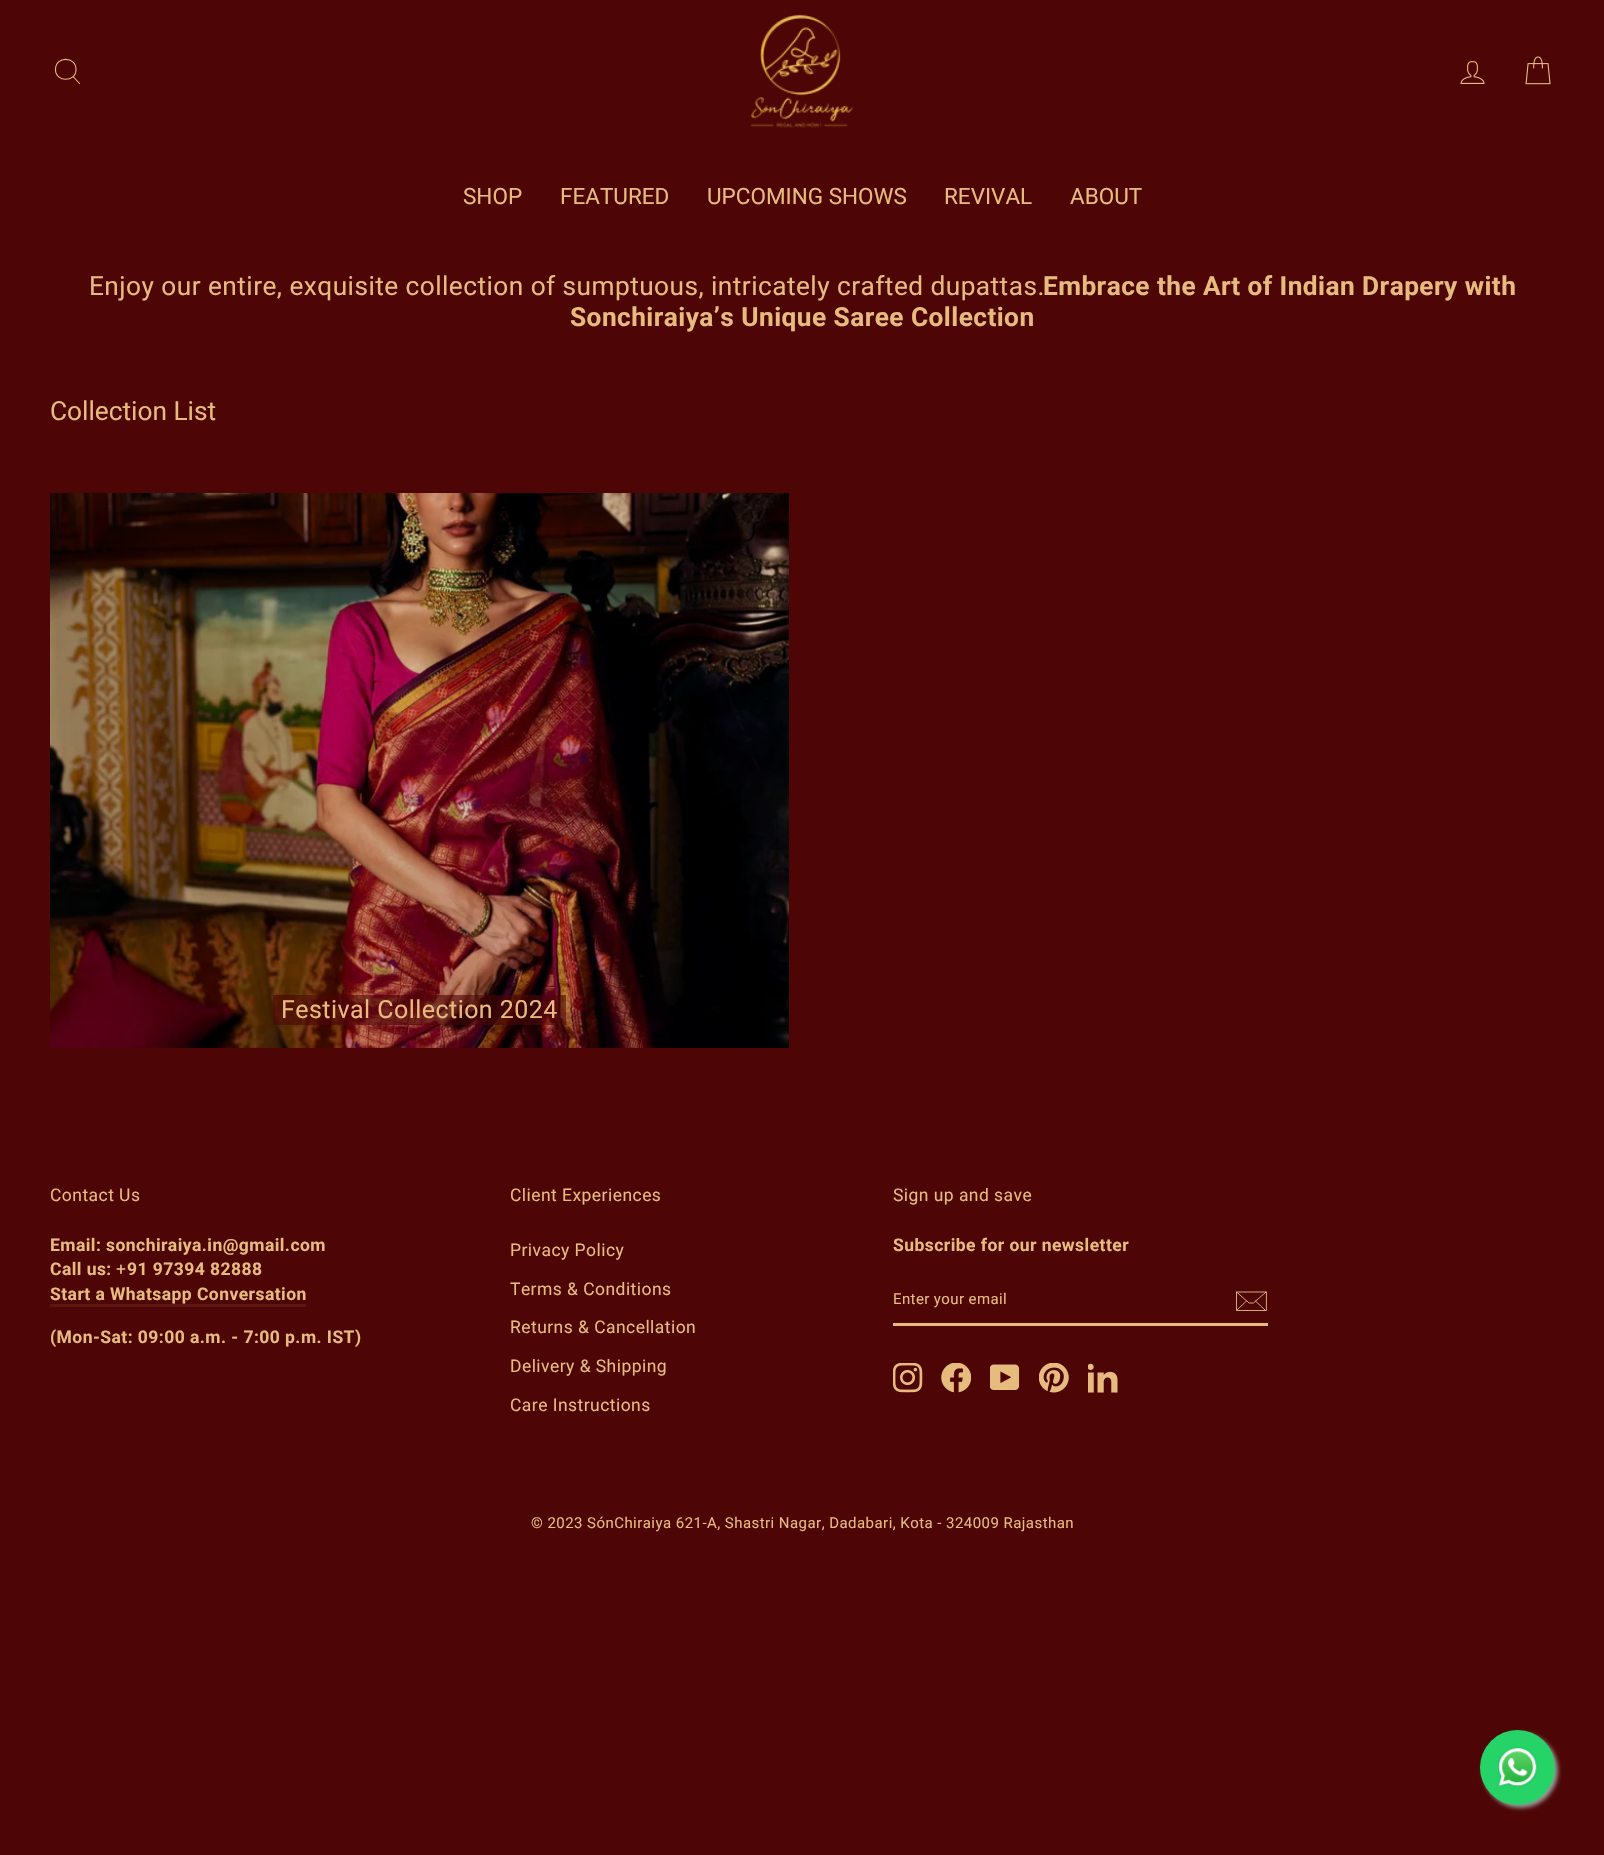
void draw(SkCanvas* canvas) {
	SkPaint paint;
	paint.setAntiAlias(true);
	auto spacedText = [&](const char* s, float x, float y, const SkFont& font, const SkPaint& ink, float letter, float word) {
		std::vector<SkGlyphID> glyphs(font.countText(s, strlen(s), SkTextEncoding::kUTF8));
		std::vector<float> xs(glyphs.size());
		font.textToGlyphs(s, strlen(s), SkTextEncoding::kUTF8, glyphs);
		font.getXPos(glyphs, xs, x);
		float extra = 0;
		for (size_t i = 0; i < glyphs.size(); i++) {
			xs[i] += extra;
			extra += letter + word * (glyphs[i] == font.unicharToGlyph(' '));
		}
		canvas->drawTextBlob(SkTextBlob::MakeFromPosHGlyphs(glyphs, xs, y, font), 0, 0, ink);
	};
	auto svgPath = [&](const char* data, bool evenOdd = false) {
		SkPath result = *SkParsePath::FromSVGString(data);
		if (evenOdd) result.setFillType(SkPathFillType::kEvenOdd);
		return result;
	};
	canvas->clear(0xff4d0505);
	paint.setColor(0x33000000);
	paint.setMaskFilter(SkMaskFilter::MakeBlur(kNormal_SkBlurStyle, 0.5));
	canvas->drawRect(SkRect::MakeXYWH(0, -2, 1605, 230), paint);
	paint.setMaskFilter(nullptr);
	paint.setColor(0xff4d0505);
	canvas->drawRect(SkRect::MakeXYWH(0, 0, 1604, 228), paint);
	paint.setStroke(true);
	paint.setStrokeWidth(1.1);
	paint.setStrokeCap(SkPaint::kRound_Cap);
	paint.setStrokeJoin(SkPaint::kRound_Join);
	paint.setColor(0xffe7bb7e);
	canvas->drawPath(svgPath("M76 69.5C76 82.5 55.5 82.5 55.5 69.5C55.5 56 76 56 76 69.5ZM79.5 83.5L73 76.5"), paint);
	canvas->drawImageRect(SkImages::DeferredFromEncodedData(SkData::MakeFromFileName("img1.png")), SkRect::MakeXYWH(750, 14, 103, 114), SkSamplingOptions());
	canvas->drawImageRect(SkImages::DeferredFromEncodedData(SkData::MakeFromFileName("img2.png")), SkRect::MakeXYWH(1460, 61, 25, 23), SkSamplingOptions());
	canvas->drawImageRect(SkImages::DeferredFromEncodedData(SkData::MakeFromFileName("img3.png")), SkRect::MakeXYWH(1525, 56, 26, 29), SkSamplingOptions());
	SkFont f1(fontMgr->matchFamilyStyle("Roboto", SkFontStyle::Normal()), 22.5);
	f1.setSubpixel(true);
	paint.setStroke(false);
	canvas->drawString("SHOP", 463, 204, f1, paint);
	canvas->drawString("FEATURED", 560, 204, f1, paint);
	canvas->drawString("UPCOMING SHOWS", 707, 204, f1, paint);
	canvas->drawString("REVIVAL", 944, 204, f1, paint);
	canvas->drawString("ABOUT", 1070, 204, f1, paint);
	SkFont f2(fontMgr->matchFamilyStyle("Roboto", SkFontStyle::Normal()), 26.25);
	f2.setSubpixel(true);
	spacedText("Enjoy our entire, exquisite collection of sumptuous, intricately crafted dupattas.", 89, 295, f2, paint, 0.45, 0);
	SkFont f3(fontMgr->matchFamilyStyle("Roboto", SkFontStyle::Bold()), 26.25);
	f3.setSubpixel(true);
	spacedText("Embrace the Art of Indian Drapery with", 1043, 295, f3, paint, 0.45, 0);
	spacedText("Sonchiraiya’s Unique Saree Collection", 570, 326, f3, paint, 0.45, 0);
	canvas->drawString("Collection List", 50, 420, f2, paint);
	canvas->drawImageRect(SkImages::DeferredFromEncodedData(SkData::MakeFromFileName("img4.png")), SkRect::MakeXYWH(50, 493, 739, 555), SkSamplingOptions());
	paint.setColor(0x994d0505);
	canvas->drawRect(SkRect::MakeXYWH(273, 995, 293, 30), paint);
	SkFont f4(fontMgr->matchFamilyStyle("Roboto", SkFontStyle::Normal()), 25);
	f4.setSubpixel(true);
	paint.setColor(0xffe7bb7e);
	spacedText("Festival Collection 2024", 281, 1018, f4, paint, 0.45, 0);
	SkFont f5(fontMgr->matchFamilyStyle("Roboto", SkFontStyle::Normal()), 17.5);
	f5.setSubpixel(true);
	spacedText("Contact Us", 50, 1201, f5, paint, 0.45, 0);
	SkFont f6(fontMgr->matchFamilyStyle("Roboto", SkFontStyle::Bold()), 17.5);
	f6.setSubpixel(true);
	spacedText("Email: sonchiraiya.in@gmail.com", 50, 1251, f6, paint, 0.45, 0);
	spacedText("Call us:", 50, 1275, f6, paint, 0.45, 0);
	spacedText("+", 116, 1275, f5, paint, 0.45, 0);
	spacedText("91 97394 82888", 127, 1275, f6, paint, 0.45, 0);
	spacedText("Start a Whatsapp Conversation", 50, 1300, f6, paint, 0.45, 0);
	paint.setColor(0xff5c1711);
	canvas->drawRect(SkRect::MakeXYWH(50, 1304, 256, 3), paint);
	paint.setColor(0xffe7bb7e);
	spacedText("(Mon-Sat: 09:00 a.m. - 7:00 p.m. IST)", 50, 1343, f6, paint, 0.45, 0);
	spacedText("Client Experiences", 510, 1201, f5, paint, 0.45, 0);
	spacedText("Privacy Policy", 510, 1256, f5, paint, 0.45, 0);
	spacedText("Terms & Conditions", 510, 1295, f5, paint, 0.45, 0);
	spacedText("Returns & Cancellation", 510, 1333, f5, paint, 0.45, 0);
	spacedText("Delivery & Shipping", 510, 1372, f5, paint, 0.45, 0);
	spacedText("Care Instructions", 510, 1411, f5, paint, 0.45, 0);
	spacedText("Sign up and save", 893, 1201, f5, paint, 0.45, 0);
	spacedText("Subscribe for our newsletter", 893, 1251, f6, paint, 0.45, 0);
	canvas->drawRect(SkRect::MakeXYWH(893, 1323, 375, 3), paint);
	SkFont f7(fontMgr->matchFamilyStyle("Roboto", SkFontStyle::Normal()), 15);
	f7.setSubpixel(true);
	spacedText("Enter your email", 893, 1304, f7, paint, 0.4, 0);
	paint.setStroke(true);
	paint.setStrokeWidth(0.9);
	canvas->drawPath(svgPath("M1266 1310.5H1236.5V1292H1266ZM1236.5 1292L1249 1303H1253.5L1266 1292M1246.5 1301L1237 1310M1265.5 1310.5L1255.5 1301"), paint);
	canvas->drawImageRect(SkImages::DeferredFromEncodedData(SkData::MakeFromFileName("img5.png")), SkRect::MakeXYWH(893, 1363, 30, 30), SkSamplingOptions());
	canvas->drawImageRect(SkImages::DeferredFromEncodedData(SkData::MakeFromFileName("img6.png")), SkRect::MakeXYWH(941, 1363, 30, 30), SkSamplingOptions());
	canvas->drawImageRect(SkImages::DeferredFromEncodedData(SkData::MakeFromFileName("img7.png")), SkRect::MakeXYWH(990, 1364, 30, 26), SkSamplingOptions());
	canvas->drawImageRect(SkImages::DeferredFromEncodedData(SkData::MakeFromFileName("img8.png")), SkRect::MakeXYWH(1039, 1363, 30, 30), SkSamplingOptions());
	canvas->drawImageRect(SkImages::DeferredFromEncodedData(SkData::MakeFromFileName("img9.png")), SkRect::MakeXYWH(1088, 1363, 30, 30), SkSamplingOptions());
	paint.setStroke(false);
	spacedText("© 2023 SónChiraiya 621-A, Shastri Nagar, Dadabari, Kota - 324009 Rajasthan", 531, 1528, f7, paint, 0.45, 0);
	paint.setColor(0xff999999);
	paint.setMaskFilter(SkMaskFilter::MakeBlur(kNormal_SkBlurStyle, 2));
	canvas->drawRoundRect(SkRect::MakeXYWH(1483, 1733, 75, 75), 37.5, 37.5, paint);
	paint.setMaskFilter(nullptr);
	paint.setColor(0xff25d366);
	canvas->drawCircle(1517.5, 1767.5, 37.5, paint);
	canvas->drawImageRect(SkImages::DeferredFromEncodedData(SkData::MakeFromFileName("img10.png")), SkRect::MakeXYWH(1498, 1747, 40, 40), SkSamplingOptions());
}
